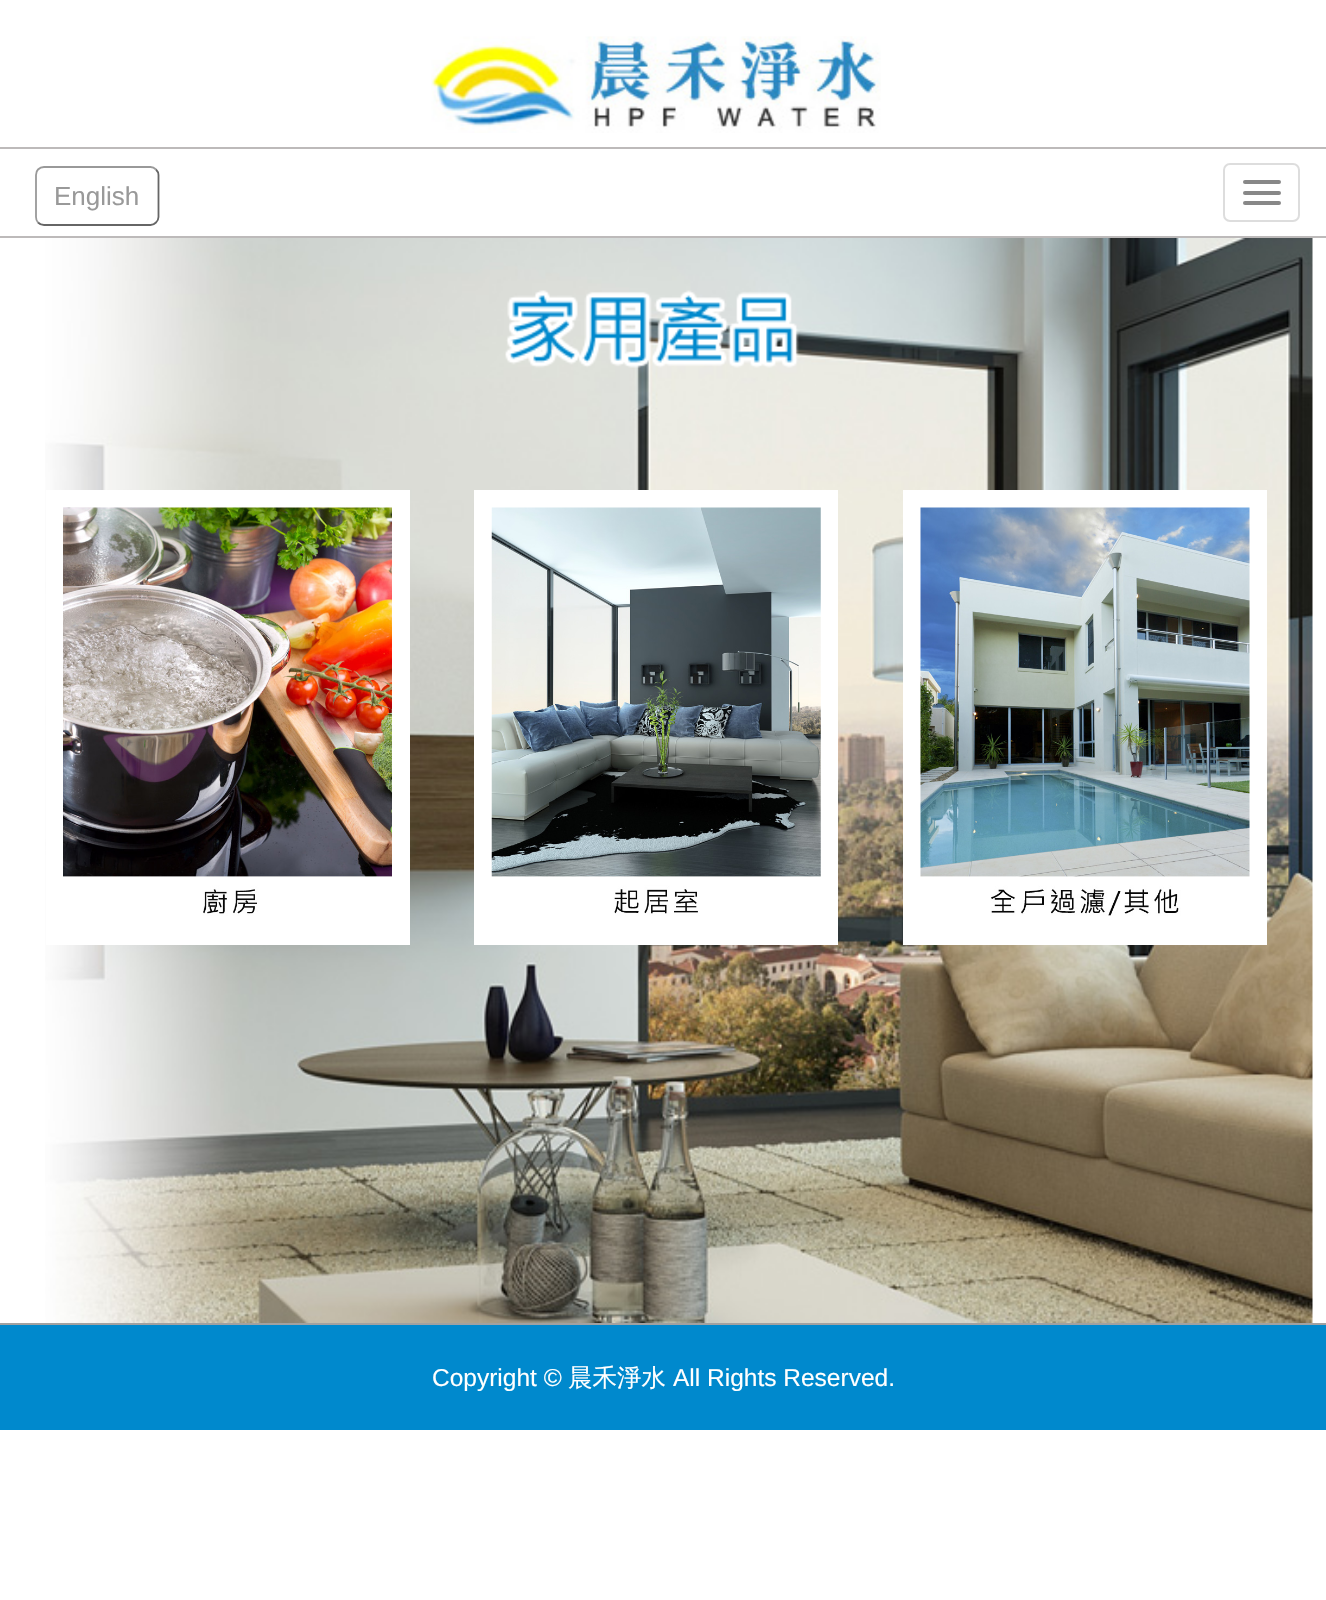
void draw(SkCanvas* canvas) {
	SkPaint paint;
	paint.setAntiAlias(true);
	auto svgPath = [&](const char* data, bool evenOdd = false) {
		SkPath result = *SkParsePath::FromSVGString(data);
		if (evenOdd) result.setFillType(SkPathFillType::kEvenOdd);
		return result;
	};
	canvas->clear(0xffffffff);
	canvas->drawImageRect(SkImages::DeferredFromEncodedData(SkData::MakeFromFileName("img1.png")), SkRect::MakeXYWH(431, 36, 450, 97), SkSamplingOptions());
	paint.setColor(0xffbdbaba);
	canvas->drawRect(SkRect::MakeXYWH(0, 147, 1326, 2), paint);
	canvas->drawRect(SkRect::MakeXYWH(0, 236, 1326, 2), paint);
	paint.setStroke(true);
	paint.setStrokeWidth(1.8);
	paint.setColor(0xff666666);
	canvas->drawPath(svgPath("M156 169.5C157.5 171 158.5 173 158.5 175V217C158.5 219 157.5 221 156 222.5C154.5 224 152.5 225 150.5 225H44C41.5 225 39.5 224 38 222.5"), paint);
	paint.setColor(0xff999999);
	canvas->drawPath(svgPath("M38 222.5C36.5 221 36 219 36 217V175C36 173 36.5 171 38 169.5C39.5 168 41.5 167 44 167H150.5C152.5 167 154.5 168 156 169.5"), paint);
	SkFont f1(fontMgr->matchFamilyStyle("Liberation Sans", SkFontStyle::Normal()), 26);
	f1.setSubpixel(true);
	paint.setStroke(false);
	canvas->drawString("English", 54, 205, f1, paint);
	paint.setStroke(true);
	paint.setStrokeWidth(2);
	paint.setColor(0xffdddddd);
	canvas->drawRoundRect(SkRect::MakeXYWH(1224, 164, 75, 57), 6, 6, paint);
	paint.setStroke(false);
	paint.setColor(0xff888888);
	canvas->drawRoundRect(SkRect::MakeXYWH(1243, 180, 38, 4), 2, 2, paint);
	canvas->drawRoundRect(SkRect::MakeXYWH(1243, 191, 38, 4), 2, 2, paint);
	canvas->drawRoundRect(SkRect::MakeXYWH(1243, 201, 38, 4), 2, 2, paint);
	canvas->drawImageRect(SkImages::DeferredFromEncodedData(SkData::MakeFromFileName("img2.png")), SkRect::MakeXYWH(45, 238, 1268, 1085), SkSamplingOptions());
	canvas->drawImageRect(SkImages::DeferredFromEncodedData(SkData::MakeFromFileName("img3.png")), SkRect::MakeXYWH(505, 290, 294, 78), SkSamplingOptions());
	paint.setStroke(true);
	paint.setStrokeWidth(18);
	paint.setColor(0xffffffff);
	canvas->drawRect(SkRect::MakeXYWH(55, 499, 346, 437), paint);
	canvas->drawImageRect(SkImages::DeferredFromEncodedData(SkData::MakeFromFileName("img4.png")), SkRect::MakeXYWH(63, 507, 329, 420), SkSamplingOptions());
	canvas->drawRect(SkRect::MakeXYWH(483, 499, 346, 437), paint);
	canvas->drawImageRect(SkImages::DeferredFromEncodedData(SkData::MakeFromFileName("img5.png")), SkRect::MakeXYWH(491, 507, 330, 420), SkSamplingOptions());
	canvas->drawRect(SkRect::MakeXYWH(912, 499, 346, 437), paint);
	canvas->drawImageRect(SkImages::DeferredFromEncodedData(SkData::MakeFromFileName("img6.png")), SkRect::MakeXYWH(920, 507, 330, 420), SkSamplingOptions());
	paint.setStroke(false);
	paint.setColor(0xffa1a1a1);
	canvas->drawRect(SkRect::MakeXYWH(0, 1323, 1326, 2), paint);
	paint.setColor(0xff0089cd);
	canvas->drawRect(SkRect::MakeXYWH(0, 1325, 1326, 105), paint);
	SkFont f2(fontMgr->matchFamilyStyle("Liberation Sans", SkFontStyle::Normal()), 24.5);
	f2.setSubpixel(true);
	paint.setColor(0xffffffff);
	canvas->drawString("Copyright ©", 432, 1386, f2, paint);
	SkFont f3(fontMgr->matchFamilyStyle("WenQuanYi Zen Hei", SkFontStyle(500, SkFontStyle::kNormal_Width, SkFontStyle::kUpright_Slant)), 24.5);
	f3.setSubpixel(true);
	canvas->drawString("晨禾淨水", 568, 1386, f3, paint);
	canvas->drawString("All Rights Reserved.", 673, 1386, f2, paint);
}
